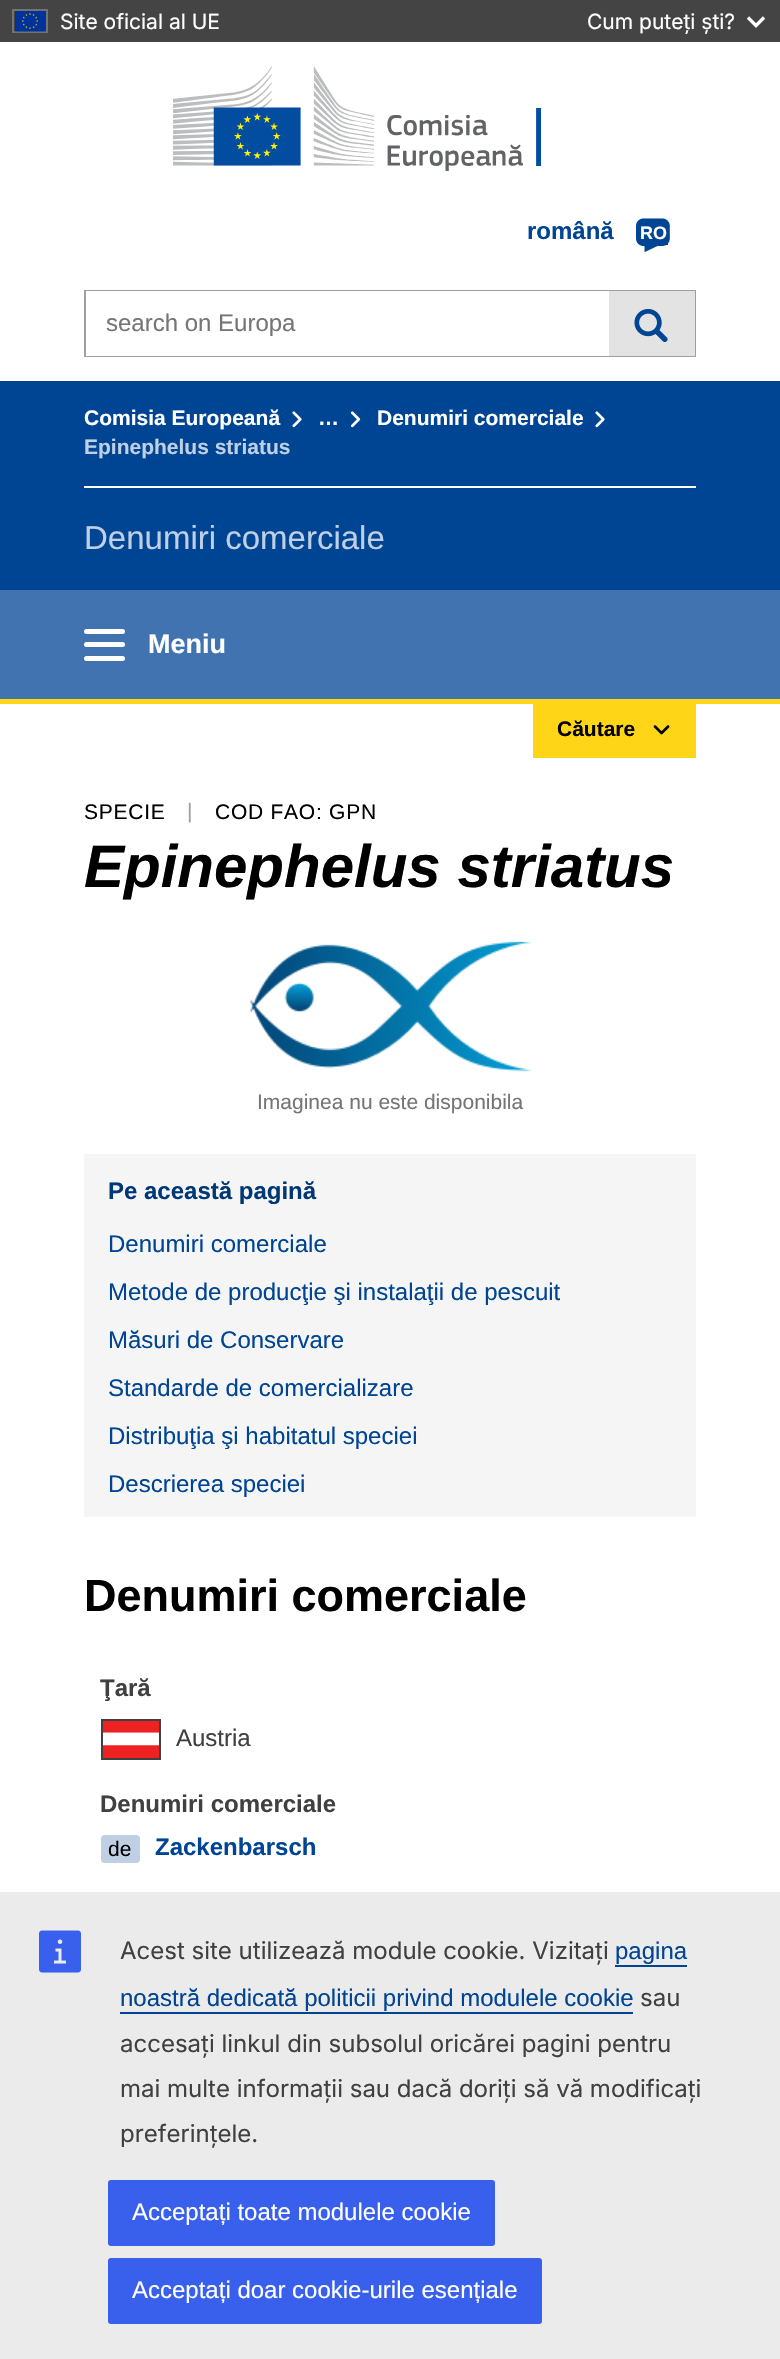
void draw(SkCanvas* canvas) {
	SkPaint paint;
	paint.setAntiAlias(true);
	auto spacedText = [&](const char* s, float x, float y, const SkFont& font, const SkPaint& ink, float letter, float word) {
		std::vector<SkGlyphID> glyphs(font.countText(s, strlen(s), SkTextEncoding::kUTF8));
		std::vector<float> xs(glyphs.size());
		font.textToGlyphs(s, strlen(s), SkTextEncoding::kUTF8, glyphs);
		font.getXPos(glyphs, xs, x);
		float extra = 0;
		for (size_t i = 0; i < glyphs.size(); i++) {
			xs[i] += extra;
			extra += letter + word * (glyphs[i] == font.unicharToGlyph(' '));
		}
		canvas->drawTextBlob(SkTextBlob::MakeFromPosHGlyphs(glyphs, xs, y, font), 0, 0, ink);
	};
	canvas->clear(0xffffffff);
	paint.setColor(0xff444444);
	canvas->drawRect(SkRect::MakeXYWH(0, 0, 780, 42), paint);
	paint.setStroke(true);
	paint.setStrokeWidth(2);
	paint.setColor(0xff737373);
	canvas->drawRect(SkRect::MakeXYWH(13, 10, 34, 22), paint);
	canvas->drawImageRect(SkImages::DeferredFromEncodedData(SkData::MakeFromFileName("img1.png")), SkRect::MakeXYWH(15, 11, 31, 21), SkSamplingOptions());
	SkFont f1(fontMgr->matchFamilyStyle("Inter", SkFontStyle::Normal()), 21);
	f1.setSubpixel(true);
	paint.setStroke(false);
	paint.setColor(0xffffffff);
	canvas->drawString("Site oficial al UE", 60, 29, f1, paint);
	canvas->drawString("Cum puteți ști?", 587, 29, f1, paint);
	canvas->drawImageRect(SkImages::DeferredFromEncodedData(SkData::MakeFromFileName("img2.png")), SkRect::MakeXYWH(747, 16, 18, 12), SkSamplingOptions());
	canvas->drawImageRect(SkImages::DeferredFromEncodedData(SkData::MakeFromFileName("img3.png")), SkRect::MakeXYWH(173, 66, 369, 105), SkSamplingOptions());
	SkFont f2(fontMgr->matchFamilyStyle("Liberation Sans", SkFontStyle::Bold()), 24);
	f2.setSubpixel(true);
	paint.setColor(0xff004494);
	canvas->drawString("română", 527, 239, f2, paint);
	canvas->drawImageRect(SkImages::DeferredFromEncodedData(SkData::MakeFromFileName("img4.png")), SkRect::MakeXYWH(636, 218, 34, 35), SkSamplingOptions());
	SkFont f3(fontMgr->matchFamilyStyle("Liberation Sans", SkFontStyle::Bold()), 18);
	f3.setSubpixel(true);
	paint.setColor(0xffffffff);
	canvas->drawString("RO", 640, 239, f3, paint);
	paint.setColor(0xff004494);
	canvas->drawRect(SkRect::MakeXYWH(666, 243, 2, 2), paint);
	paint.setStroke(true);
	paint.setColor(0xff9f9f9f);
	canvas->drawRect(SkRect::MakeXYWH(85, 291, 610, 65), paint);
	paint.setStroke(false);
	paint.setColor(0xffffffff);
	canvas->drawRect(SkRect::MakeXYWH(86, 291, 523, 65), paint);
	SkFont f4(fontMgr->matchFamilyStyle("Liberation Sans", SkFontStyle::Normal()), 24);
	f4.setSubpixel(true);
	paint.setColor(0xff757575);
	canvas->drawString("search on Europa", 106, 331, f4, paint);
	paint.setColor(0xffe3e3e3);
	canvas->drawRect(SkRect::MakeXYWH(609, 291, 86, 65), paint);
	canvas->drawImageRect(SkImages::DeferredFromEncodedData(SkData::MakeFromFileName("img5.png")), SkRect::MakeXYWH(634, 308, 34, 34), SkSamplingOptions());
	paint.setColor(0xff004494);
	canvas->drawRect(SkRect::MakeXYWH(0, 381, 780, 209), paint);
	paint.setColor(0xffffffff);
	canvas->drawRect(SkRect::MakeXYWH(84, 486, 612, 2), paint);
	SkFont f5(fontMgr->matchFamilyStyle("Liberation Sans", SkFontStyle::Bold()), 21);
	f5.setSubpixel(true);
	canvas->drawString("Comisia Europeană", 84, 425, f5, paint);
	canvas->drawImageRect(SkImages::DeferredFromEncodedData(SkData::MakeFromFileName("img6.png")), SkRect::MakeXYWH(292, 411, 10, 17), SkSamplingOptions());
	canvas->drawString("…", 318, 425, f5, paint);
	canvas->drawImageRect(SkImages::DeferredFromEncodedData(SkData::MakeFromFileName("img7.png")), SkRect::MakeXYWH(350, 411, 11, 17), SkSamplingOptions());
	canvas->drawString("Denumiri comerciale", 377, 425, f5, paint);
	canvas->drawImageRect(SkImages::DeferredFromEncodedData(SkData::MakeFromFileName("img6.png")), SkRect::MakeXYWH(595, 411, 10, 17), SkSamplingOptions());
	paint.setColor(0xffbfd0e4);
	canvas->drawString("Epinephelus striatus", 84, 454, f5, paint);
	SkFont f6(fontMgr->matchFamilyStyle("Liberation Sans", SkFontStyle::Normal()), 33);
	f6.setSubpixel(true);
	canvas->drawString("Denumiri comerciale", 84, 549, f6, paint);
	paint.setColor(0xff4073af);
	canvas->drawRect(SkRect::MakeXYWH(0, 590, 780, 109), paint);
	paint.setColor(0xffffffff);
	canvas->drawRoundRect(SkRect::MakeXYWH(84, 642, 41, 5), 2.5, 2.5, paint);
	canvas->drawRoundRect(SkRect::MakeXYWH(84, 629, 41, 5), 2.5, 2.5, paint);
	canvas->drawRoundRect(SkRect::MakeXYWH(84, 656, 41, 5), 2.5, 2.5, paint);
	SkFont f7(fontMgr->matchFamilyStyle("Liberation Sans", SkFontStyle::Bold()), 27);
	f7.setSubpixel(true);
	canvas->drawString("Meniu", 148, 653, f7, paint);
	paint.setColor(0xffffd617);
	canvas->drawRect(SkRect::MakeXYWH(0, 699, 780, 5), paint);
	canvas->drawRect(SkRect::MakeXYWH(533, 704, 163, 54), paint);
	paint.setColor(0xff000000);
	canvas->drawString("Căutare", 557, 736, f5, paint);
	canvas->drawImageRect(SkImages::DeferredFromEncodedData(SkData::MakeFromFileName("img8.png")), SkRect::MakeXYWH(653, 725, 17, 10), SkSamplingOptions());
	SkFont f8(fontMgr->matchFamilyStyle("Liberation Sans", SkFontStyle::Normal()), 21);
	f8.setSubpixel(true);
	spacedText("SPECIE", 84, 819, f8, paint, 0.75, 0);
	paint.setColor(0xff9f9f9f);
	spacedText("|", 187, 818, f8, paint, 0.75, 0);
	paint.setColor(0xff000000);
	spacedText("COD FAO: GPN", 215, 819, f8, paint, 0.75, 0);
	SkFont f9(fontMgr->matchFamilyStyle("Liberation Sans", SkFontStyle::BoldItalic()), 60);
	f9.setSubpixel(true);
	canvas->drawString("Epinephelus striatus", 84, 887, f9, paint);
	canvas->drawImageRect(SkImages::DeferredFromEncodedData(SkData::MakeFromFileName("img9.png")), SkRect::MakeXYWH(249, 941, 283, 131), SkSamplingOptions());
	paint.setColor(0xff757575);
	canvas->drawString("Imaginea nu este disponibila", 257, 1109, f8, paint);
	paint.setColor(0xfff5f5f5);
	canvas->drawRect(SkRect::MakeXYWH(84, 1154, 612, 363), paint);
	paint.setColor(0xff003776);
	canvas->drawString("Pe această pagină", 108, 1199, f2, paint);
	paint.setColor(0xff004494);
	canvas->drawString("Denumiri comerciale", 108, 1252, f4, paint);
	canvas->drawString("Metode de producţie şi instalaţii de pescuit", 108, 1300, f4, paint);
	canvas->drawString("Măsuri de Conservare", 108, 1348, f4, paint);
	canvas->drawString("Standarde de comercializare", 108, 1396, f4, paint);
	canvas->drawString("Distribuţia şi habitatul speciei", 108, 1444, f4, paint);
	canvas->drawString("Descrierea speciei", 108, 1492, f4, paint);
	SkFont f10(fontMgr->matchFamilyStyle("Liberation Sans", SkFontStyle::Bold()), 45);
	f10.setSubpixel(true);
	paint.setColor(0xff000000);
	canvas->drawString("Denumiri comerciale", 84, 1611, f10, paint);
	paint.setColor(0xff404040);
	canvas->drawString("Ţară", 100, 1696, f2, paint);
	canvas->drawImageRect(SkImages::DeferredFromEncodedData(SkData::MakeFromFileName("img10.png")), SkRect::MakeXYWH(103, 1721, 56, 37), SkSamplingOptions());
	paint.setStroke(true);
	canvas->drawRect(SkRect::MakeXYWH(102, 1720, 58, 39), paint);
	paint.setStroke(false);
	canvas->drawString("Austria", 176, 1746, f4, paint);
	canvas->drawString("Denumiri comerciale", 100, 1812, f2, paint);
	paint.setColor(0xffbfd0e4);
	canvas->drawRoundRect(SkRect::MakeXYWH(101, 1835, 39, 28), 4, 4, paint);
	paint.setColor(0xff000000);
	canvas->drawString("de", 108, 1856, f8, paint);
	paint.setColor(0xff004494);
	canvas->drawString("Zackenbarsch", 155, 1855, f2, paint);
	paint.setColor(0xffebebeb);
	canvas->drawRect(SkRect::MakeXYWH(0, 1892, 780, 467), paint);
	canvas->drawImageRect(SkImages::DeferredFromEncodedData(SkData::MakeFromFileName("img11.png")), SkRect::MakeXYWH(39, 1930, 42, 43), SkSamplingOptions());
	SkFont f11(fontMgr->matchFamilyStyle("Inter", SkFontStyle::Normal()), 24);
	f11.setSubpixel(true);
	paint.setColor(0xff404040);
	canvas->drawString("Acest site utilizează module cookie. Vizitați", 120, 1959, f11, paint);
	paint.setColor(0xff004494);
	canvas->drawString("pagina", 615, 1959, f4, paint);
	canvas->drawRect(SkRect::MakeXYWH(615, 1965, 72, 2), paint);
	canvas->drawString("noastră dedicată politicii privind modulele cookie", 120, 2006, f4, paint);
	canvas->drawRect(SkRect::MakeXYWH(120, 2012, 513, 2), paint);
	paint.setColor(0xff404040);
	canvas->drawString("sau", 640, 2006, f11, paint);
	canvas->drawString("accesați linkul din subsolul oricărei pagini pentru", 120, 2052, f11, paint);
	canvas->drawString("mai multe informații sau dacă doriți să vă modificați", 120, 2097, f11, paint);
	canvas->drawString("preferințele.", 120, 2142, f11, paint);
	paint.setColor(0xff3860ed);
	canvas->drawRoundRect(SkRect::MakeXYWH(108, 2180, 387, 66), 3, 3, paint);
	paint.setColor(0xffffffff);
	canvas->drawString("Acceptați toate modulele cookie", 132, 2220, f4, paint);
	paint.setColor(0xff3860ed);
	canvas->drawRoundRect(SkRect::MakeXYWH(108, 2258, 434, 66), 3, 3, paint);
	paint.setColor(0xffffffff);
	canvas->drawString("Acceptați doar cookie-urile esențiale", 132, 2298, f4, paint);
}
